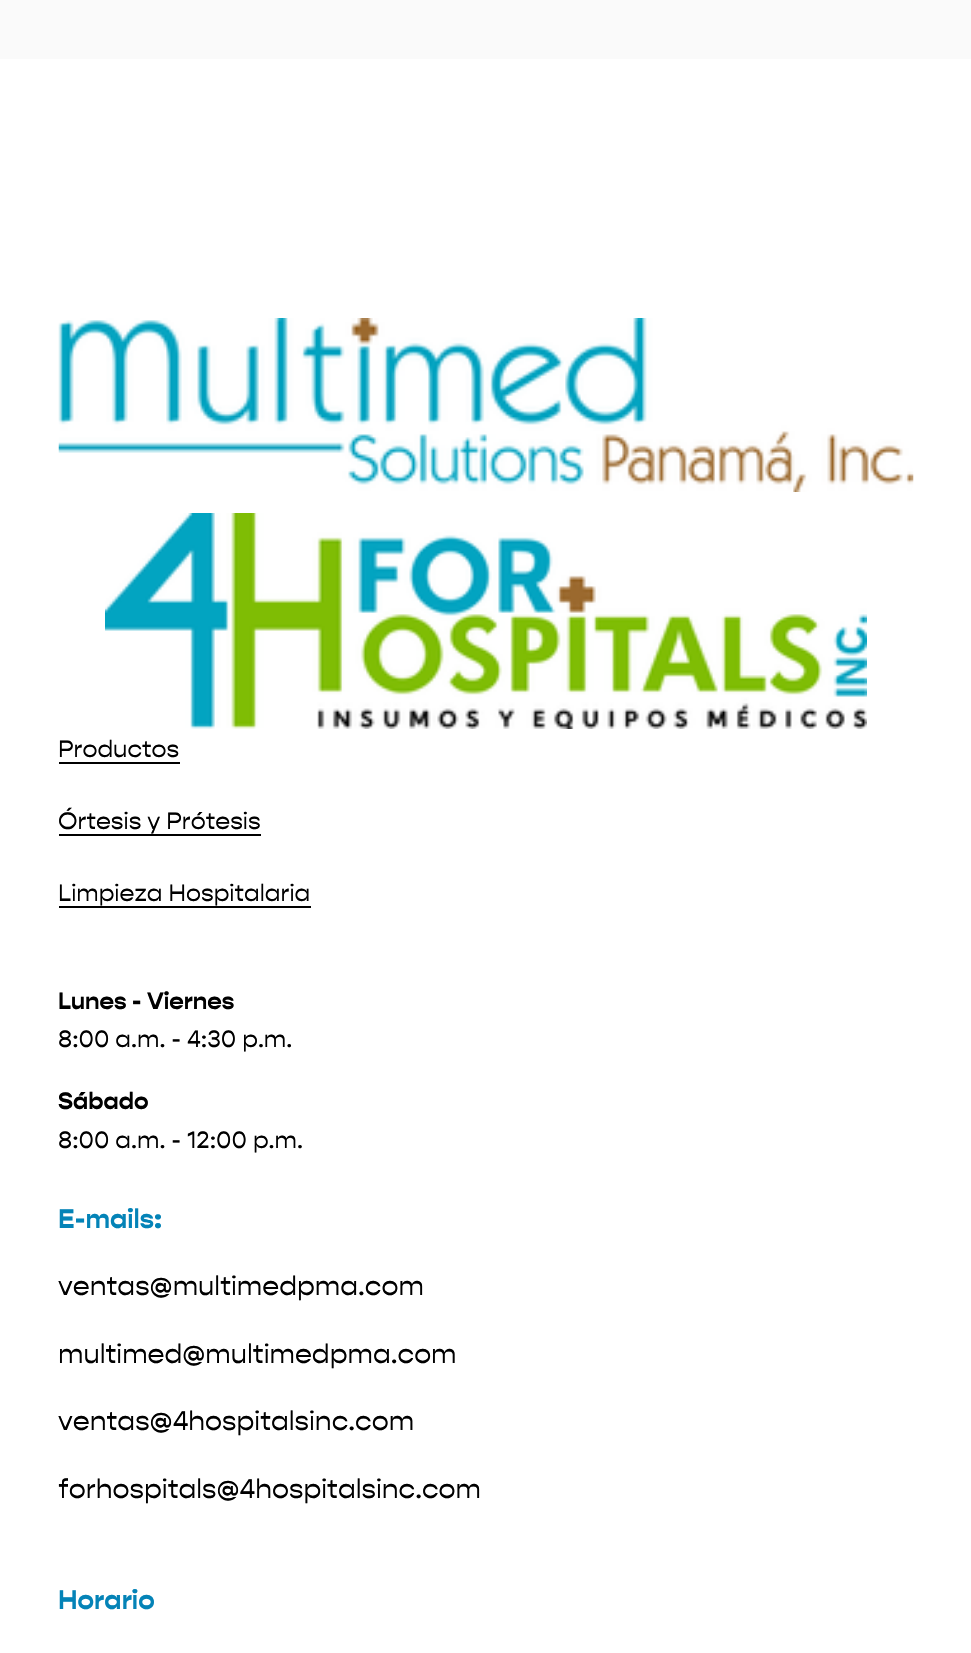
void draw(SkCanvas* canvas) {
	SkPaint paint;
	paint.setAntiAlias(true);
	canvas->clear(0xfffafafa);
	paint.setColor(0xffffffff);
	canvas->drawRect(SkRect::MakeXYWH(0, 59, 971, 1594), paint);
	canvas->drawImageRect(SkImages::DeferredFromEncodedData(SkData::MakeFromFileName("img1.png")), SkRect::MakeXYWH(58, 318, 856, 174), SkSamplingOptions());
	canvas->drawImageRect(SkImages::DeferredFromEncodedData(SkData::MakeFromFileName("img2.png")), SkRect::MakeXYWH(105, 513, 762, 216), SkSamplingOptions());
	SkFont f1(fontMgr->matchFamilyStyle("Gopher", SkFontStyle::Normal()), 24);
	f1.setSubpixel(true);
	paint.setColor(0xff000000);
	canvas->drawString("Productos", 58, 757, f1, paint);
	canvas->drawRect(SkRect::MakeXYWH(59, 762, 121, 2), paint);
	canvas->drawString("Órtesis y Prótesis", 58, 829, f1, paint);
	canvas->drawRect(SkRect::MakeXYWH(59, 834, 202, 2), paint);
	canvas->drawString("Limpieza Hospitalaria", 58, 901, f1, paint);
	canvas->drawRect(SkRect::MakeXYWH(59, 906, 252, 2), paint);
	SkFont f2(fontMgr->matchFamilyStyle("Gopher", SkFontStyle::Bold()), 24);
	f2.setSubpixel(true);
	canvas->drawString("Lunes - Viernes", 58, 1009, f2, paint);
	canvas->drawString("8:00 a.m. - 4:30 p.m.", 58, 1047, f1, paint);
	canvas->drawString("Sábado", 58, 1109, f2, paint);
	canvas->drawString("8:00 a.m. - 12:00 p.m.", 58, 1148, f1, paint);
	SkFont f3(fontMgr->matchFamilyStyle("Gopher", SkFontStyle::Bold()), 27.25);
	f3.setSubpixel(true);
	paint.setColor(0xff0483b7);
	canvas->drawString("E-mails:", 58, 1228, f3, paint);
	SkFont f4(fontMgr->matchFamilyStyle("Gopher", SkFontStyle::Normal()), 27.25);
	f4.setSubpixel(true);
	paint.setColor(0xff000000);
	canvas->drawString("ventas@multimedpma.com", 58, 1295, f4, paint);
	canvas->drawString("multimed@multimedpma.com", 58, 1363, f4, paint);
	canvas->drawString("ventas@4hospitalsinc.com", 58, 1430, f4, paint);
	canvas->drawString("forhospitals@4hospitalsinc.com", 58, 1498, f4, paint);
	paint.setColor(0xff0483b7);
	canvas->drawString("Horario", 58, 1609, f3, paint);
}
